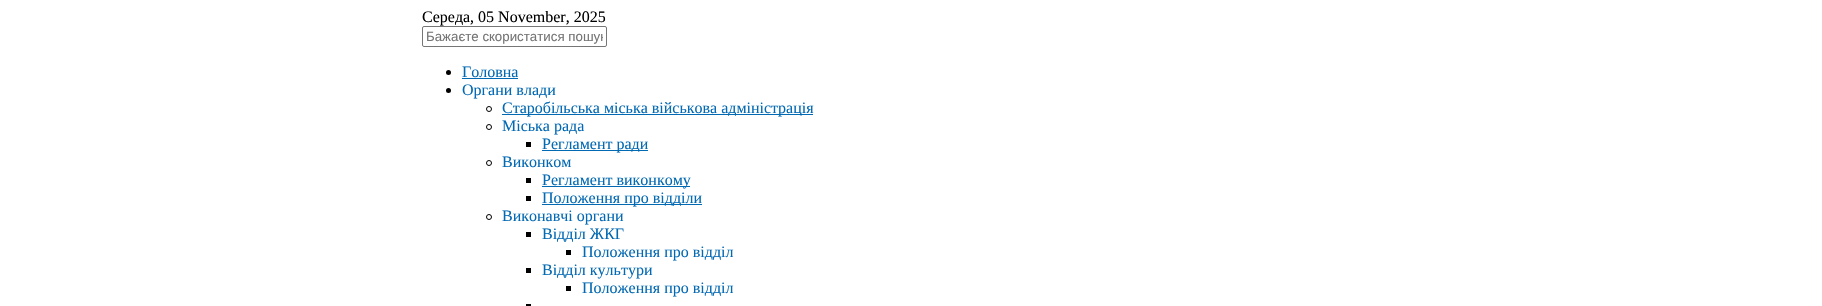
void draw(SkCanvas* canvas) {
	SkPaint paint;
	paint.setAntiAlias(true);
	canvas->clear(0xffffffff);
	SkFont f1(fontMgr->matchFamilyStyle("Liberation Serif", SkFontStyle::Normal()), 16);
	f1.setSubpixel(true);
	paint.setColor(0xff000000);
	canvas->drawString("Середа, 05 November, 2025", 422, 22, f1, paint);
	paint.setStroke(true);
	paint.setStrokeWidth(1);
	paint.setColor(0xff767676);
	canvas->drawRoundRect(SkRect::MakeXYWH(422.5, 26.5, 184, 20), 1.5, 1.5, paint);
	canvas->save();
	canvas->clipRect(SkRect::MakeXYWH(426, 29, 177, 15));
	SkFont f2(fontMgr->matchFamilyStyle("Liberation Sans", SkFontStyle::Normal()), 13.3);
	f2.setSubpixel(true);
	paint.setStroke(false);
	paint.setColor(0xff757575);
	canvas->drawString("Бажаєте скористатися пошук", 426, 41, f2, paint);
	canvas->restore();
	paint.setColor(0xff000000);
	canvas->drawCircle(448.5, 72.5, 2.5, paint);
	paint.setColor(0xff0269b3);
	canvas->drawString("Головна", 462, 77, f1, paint);
	canvas->drawRect(SkRect::MakeXYWH(462, 78, 56, 1), paint);
	paint.setColor(0xff000000);
	canvas->drawCircle(448.5, 90.5, 2.5, paint);
	paint.setColor(0xff0269b3);
	canvas->drawString("Органи влади", 462, 95, f1, paint);
	paint.setStroke(true);
	paint.setColor(0xff000000);
	canvas->drawCircle(489, 109, 2.5, paint);
	paint.setStroke(false);
	paint.setColor(0xff0269b3);
	canvas->drawRect(SkRect::MakeXYWH(502, 114, 311, 1), paint);
	canvas->drawString("Старобільська міська військова адміністрація", 502, 113, f1, paint);
	paint.setStroke(true);
	paint.setColor(0xff000000);
	canvas->drawCircle(489, 127, 2.5, paint);
	paint.setStroke(false);
	paint.setColor(0xff0269b3);
	canvas->drawString("Міська рада", 502, 131, f1, paint);
	paint.setColor(0xff000000);
	canvas->drawRect(SkRect::MakeXYWH(526, 142, 5, 5), paint);
	paint.setColor(0xff0269b3);
	canvas->drawRect(SkRect::MakeXYWH(542, 150, 106, 1), paint);
	canvas->drawString("Регламент ради", 542, 149, f1, paint);
	paint.setStroke(true);
	paint.setColor(0xff000000);
	canvas->drawCircle(489, 163, 2.5, paint);
	paint.setStroke(false);
	paint.setColor(0xff0269b3);
	canvas->drawString("Виконком", 502, 167, f1, paint);
	paint.setColor(0xff000000);
	canvas->drawRect(SkRect::MakeXYWH(526, 178, 5, 5), paint);
	paint.setColor(0xff0269b3);
	canvas->drawRect(SkRect::MakeXYWH(542, 186, 148, 1), paint);
	canvas->drawString("Регламент виконкому", 542, 185, f1, paint);
	paint.setColor(0xff000000);
	canvas->drawRect(SkRect::MakeXYWH(526, 196, 5, 5), paint);
	paint.setColor(0xff0269b3);
	canvas->drawRect(SkRect::MakeXYWH(542, 204, 160, 1), paint);
	canvas->drawString("Положення про відділи", 542, 203, f1, paint);
	paint.setStroke(true);
	paint.setColor(0xff000000);
	canvas->drawCircle(489, 217, 2.5, paint);
	paint.setStroke(false);
	paint.setColor(0xff0269b3);
	canvas->drawString("Виконавчі органи", 502, 221, f1, paint);
	paint.setColor(0xff000000);
	canvas->drawRect(SkRect::MakeXYWH(526, 232, 5, 5), paint);
	paint.setColor(0xff0269b3);
	canvas->drawString("Відділ ЖКГ", 542, 239, f1, paint);
	paint.setColor(0xff000000);
	canvas->drawRect(SkRect::MakeXYWH(566, 250, 5, 5), paint);
	paint.setColor(0xff0269b3);
	canvas->drawString("Положення про відділ", 582, 257, f1, paint);
	paint.setColor(0xff000000);
	canvas->drawRect(SkRect::MakeXYWH(526, 268, 5, 5), paint);
	paint.setColor(0xff0269b3);
	canvas->drawString("Відділ культури", 542, 275, f1, paint);
	paint.setColor(0xff000000);
	canvas->drawRect(SkRect::MakeXYWH(566, 286, 5, 5), paint);
	paint.setColor(0xff0269b3);
	canvas->drawString("Положення про відділ", 582, 293, f1, paint);
	paint.setColor(0xff000000);
	canvas->drawRect(SkRect::MakeXYWH(526, 304, 5, 2), paint);
}
